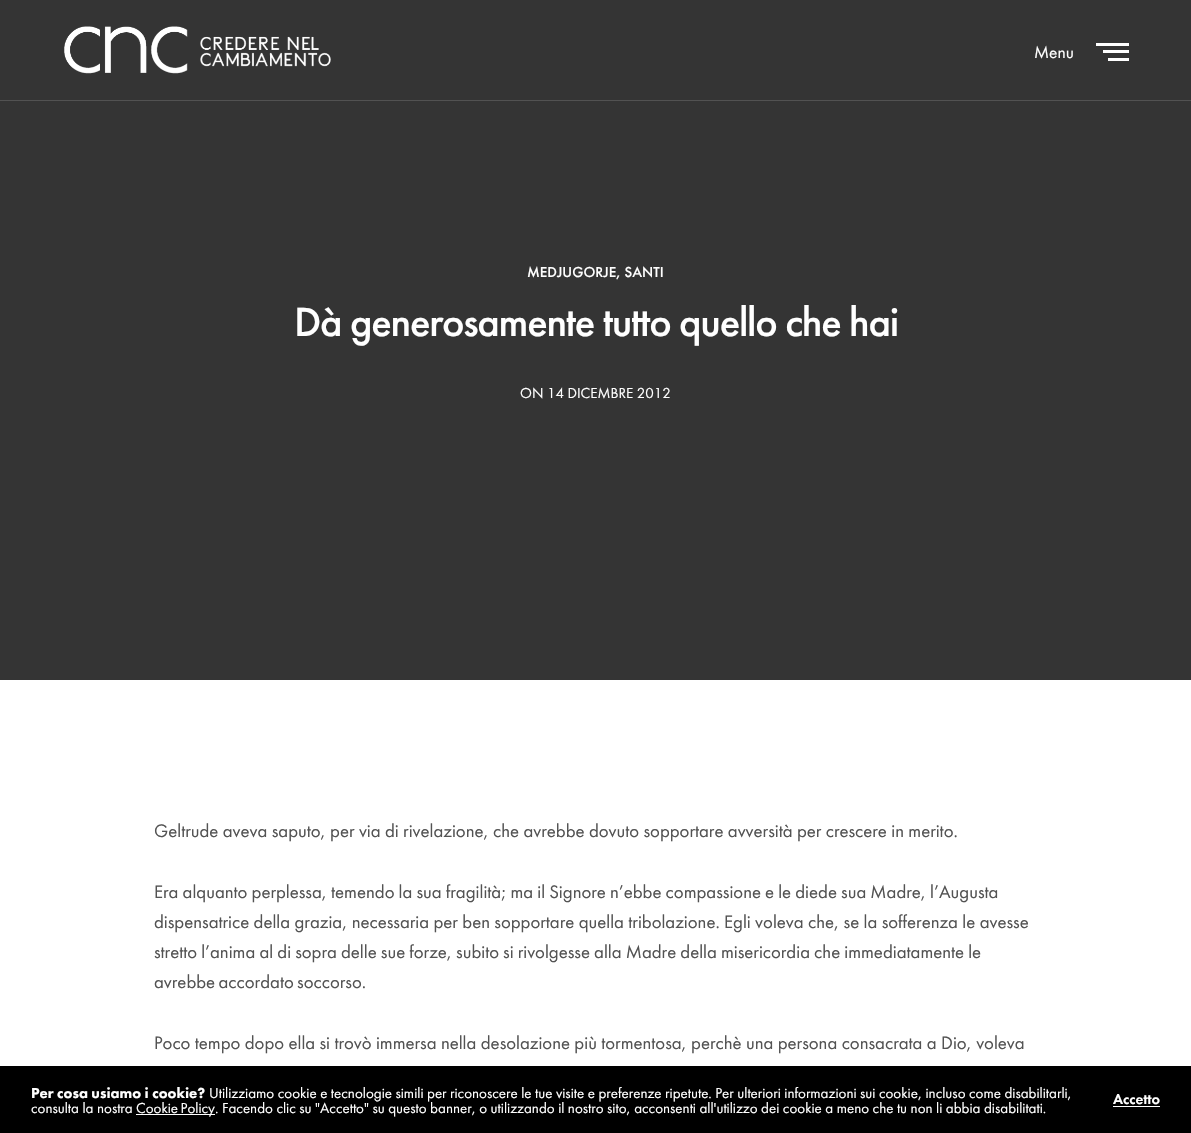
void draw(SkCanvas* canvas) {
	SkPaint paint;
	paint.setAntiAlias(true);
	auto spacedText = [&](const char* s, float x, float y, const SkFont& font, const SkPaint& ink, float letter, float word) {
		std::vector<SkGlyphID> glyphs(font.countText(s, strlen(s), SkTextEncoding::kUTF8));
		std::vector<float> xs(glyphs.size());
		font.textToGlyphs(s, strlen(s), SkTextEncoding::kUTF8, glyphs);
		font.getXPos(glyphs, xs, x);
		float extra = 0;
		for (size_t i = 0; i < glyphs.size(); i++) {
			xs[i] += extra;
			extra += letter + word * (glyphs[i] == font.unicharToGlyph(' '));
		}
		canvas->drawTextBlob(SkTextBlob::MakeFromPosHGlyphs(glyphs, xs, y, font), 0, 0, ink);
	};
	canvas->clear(0xffffffff);
	paint.setColor(0xff343434);
	canvas->drawRect(SkRect::MakeXYWH(0, 0, 1191, 680), paint);
	paint.setColor(0xff525252);
	canvas->drawRect(SkRect::MakeXYWH(0, 100, 1191, 1), paint);
	canvas->drawImageRect(SkImages::DeferredFromEncodedData(SkData::MakeFromFileName("img1.png")), SkRect::MakeXYWH(64, 26, 267, 48), SkSamplingOptions());
	SkFont f1(fontMgr->matchFamilyStyle("Futura PT", SkFontStyle::Normal()), 17.5);
	f1.setSubpixel(true);
	paint.setColor(0xffffffff);
	canvas->drawString("Menu", 1034, 58, f1, paint);
	canvas->drawRect(SkRect::MakeXYWH(1096, 43, 33, 3), paint);
	canvas->drawRect(SkRect::MakeXYWH(1103, 50, 26, 3), paint);
	canvas->drawRect(SkRect::MakeXYWH(1108, 58, 21, 3), paint);
	SkFont f2(fontMgr->matchFamilyStyle("Futura PT", SkFontStyle(500, SkFontStyle::kNormal_Width, SkFontStyle::kUpright_Slant)), 15);
	f2.setSubpixel(true);
	canvas->drawString("MEDJUGORJE, SANTI", 527, 277, f2, paint);
	SkFont f3(fontMgr->matchFamilyStyle("Futura PT", SkFontStyle(500, SkFontStyle::kNormal_Width, SkFontStyle::kUpright_Slant)), 42.5);
	f3.setSubpixel(true);
	spacedText("Dà generosamente tutto quello che hai", 294, 336, f3, paint, -1.25, 0);
	SkFont f4(fontMgr->matchFamilyStyle("Futura PT", SkFontStyle::Normal()), 15);
	f4.setSubpixel(true);
	canvas->drawString("ON 14 DICEMBRE 2012", 520, 398, f4, paint);
	SkFont f5(fontMgr->matchFamilyStyle("Futura PT", SkFontStyle::Normal()), 18.75);
	f5.setSubpixel(true);
	paint.setColor(0xff535353);
	canvas->drawString("Geltrude aveva saputo, per via di rivelazione, che avrebbe dovuto sopportare avversità per crescere in merito.", 154, 837, f5, paint);
	spacedText("Era alquanto perplessa, temendo la sua fragilità; ma il Signore n’ebbe compassione e le diede sua Madre, l’Augusta", 154, 898, f5, paint, 0, -0.25);
	canvas->drawString("dispensatrice della grazia, necessaria per ben sopportare quella tribolazione. Egli voleva che, se la sofferenza le avesse", 154, 928, f5, paint);
	spacedText("stretto l’anima al di sopra delle sue forze, subito si rivolgesse alla Madre della misericordia che immediatamente le", 154, 958, f5, paint, 0, -0.25);
	spacedText("avrebbe accordato soccorso.", 154, 988, f5, paint, 0, -1);
	canvas->drawString("Poco tempo dopo ella si trovò immersa nella desolazione più tormentosa, perchè una persona consacrata a Dio, voleva", 154, 1049, f5, paint);
	paint.setColor(0xff000000);
	canvas->drawRect(SkRect::MakeXYWH(0, 1066, 1191, 67), paint);
	SkFont f6(fontMgr->matchFamilyStyle("Futura PT", SkFontStyle(900, SkFontStyle::kNormal_Width, SkFontStyle::kUpright_Slant)), 15);
	f6.setSubpixel(true);
	paint.setColor(0xffffffff);
	canvas->drawString("Per cosa usiamo i cookie?", 31, 1098, f6, paint);
	canvas->drawString("Utilizziamo cookie e tecnologie simili per riconoscere le tue visite e preferenze ripetute. Per ulteriori informazioni sui cookie, incluso come disabilitarli,", 209, 1098, f4, paint);
	canvas->drawString("consulta la nostra", 31, 1113, f4, paint);
	canvas->drawRect(SkRect::MakeXYWH(136, 1114, 79, 1), paint);
	spacedText("Cookie Policy", 136, 1113, f4, paint, 0, -1);
	canvas->drawString(". Facendo clic su \"Accetto\" su questo banner, o utilizzando il nostro sito, acconsenti all'utilizzo dei cookie a meno che tu non li abbia disabilitati.", 215, 1113, f4, paint);
	SkFont f7(fontMgr->matchFamilyStyle("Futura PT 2", SkFontStyle(500, SkFontStyle::kNormal_Width, SkFontStyle::kUpright_Slant)), 15);
	f7.setSubpixel(true);
	canvas->drawString("Accetto", 1113, 1104, f7, paint);
	canvas->drawRect(SkRect::MakeXYWH(1113, 1106, 47, 1), paint);
}
